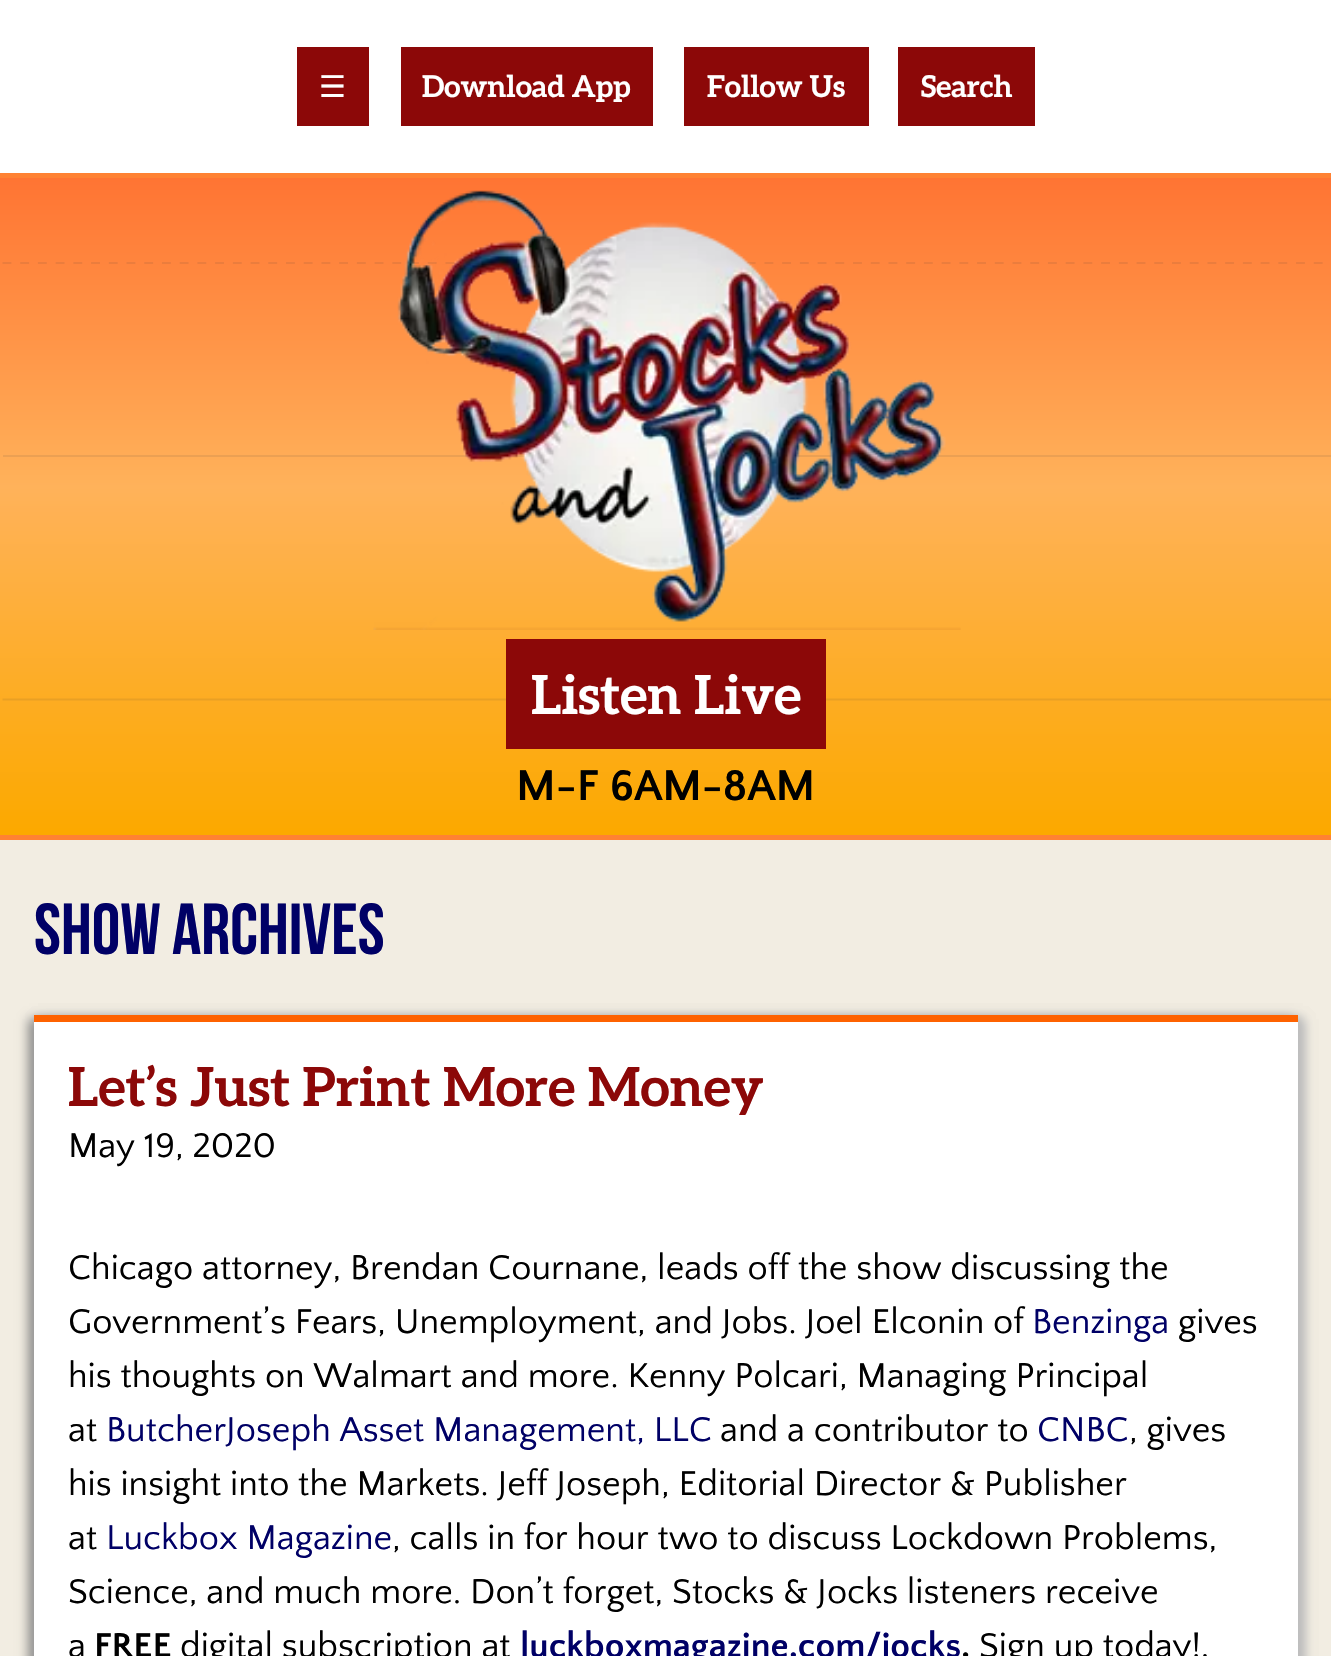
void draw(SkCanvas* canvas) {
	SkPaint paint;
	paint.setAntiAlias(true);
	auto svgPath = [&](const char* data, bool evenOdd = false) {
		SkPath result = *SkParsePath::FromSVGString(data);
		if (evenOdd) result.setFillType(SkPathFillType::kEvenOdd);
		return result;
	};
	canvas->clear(0xfff2ede2);
	paint.setColor(0xffffffff);
	canvas->drawRect(SkRect::MakeXYWH(0, 0, 1331, 173), paint);
	paint.setColor(0xff8c0808);
	canvas->drawRect(SkRect::MakeXYWH(297, 47, 72, 79), paint);
	SkFont f1(fontMgr->matchFamilyStyle("DejaVu Sans", SkFontStyle::Normal()), 30);
	f1.setSubpixel(true);
	paint.setColor(0xffffffff);
	canvas->drawString("☰", 319, 97, f1, paint);
	paint.setColor(0xff8c0808);
	canvas->drawRect(SkRect::MakeXYWH(401, 47, 252, 79), paint);
	SkFont f2(fontMgr->matchFamilyStyle("Aleo", SkFontStyle::Bold()), 30);
	f2.setSubpixel(true);
	paint.setColor(0xffffffff);
	canvas->drawString("Download App", 422, 97, f2, paint);
	paint.setColor(0xff8c0808);
	canvas->drawRect(SkRect::MakeXYWH(684, 47, 185, 79), paint);
	paint.setColor(0xffffffff);
	canvas->drawString("Follow Us", 707, 97, f2, paint);
	paint.setColor(0xff8c0808);
	canvas->drawRect(SkRect::MakeXYWH(898, 47, 137, 79), paint);
	paint.setColor(0xffffffff);
	canvas->drawString("Search", 921, 97, f2, paint);
	{
		const SkColor colors[] = {0xffff7433, 0xffffb25a, 0xfffca900, 0xfffca900};
		const float stops[] = {0, 0.47, 0.99, 1};
		const SkPoint ends[] = {{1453, 178}, {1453, 836}};
		paint.setShader(SkGradientShader::MakeLinear(ends, colors, stops, 4, SkTileMode::kClamp));
		paint.setAlpha(255);
	}
	canvas->drawRect(SkRect::MakeXYWH(0, 178, 1331, 657), paint);
	paint.setStroke(true);
	paint.setStrokeWidth(2.2);
	paint.setShader(nullptr);
	paint.setColor(0xffe9a024);
	canvas->drawPath(svgPath("M2.5 699.5H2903"), paint);
	paint.setStroke(false);
	paint.setColor(0xffeba053);
	canvas->drawRect(SkRect::MakeXYWH(3, 455, 1328, 2), paint);
	paint.setStroke(true);
	paint.setColor(0xffeb7d3d);
	paint.setPathEffect(SkDashPathEffect::Make({{0, 0, 8.86f, 8.86f}}, 0));
	canvas->drawPath(svgPath("M2.5 263H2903"), paint);
	paint.setPathEffect(nullptr);
	paint.setStroke(false);
	paint.setColor(0xffff8233);
	canvas->drawRect(SkRect::MakeXYWH(0, 173, 1331, 5), paint);
	canvas->drawRect(SkRect::MakeXYWH(0, 835, 1331, 5), paint);
	canvas->drawImageRect(SkImages::DeferredFromEncodedData(SkData::MakeFromFileName("img1.png")), SkRect::MakeXYWH(373, 190, 588, 440), SkSamplingOptions());
	paint.setColor(0xff8c0808);
	canvas->drawRect(SkRect::MakeXYWH(506, 639, 320, 110), paint);
	SkFont f3(fontMgr->matchFamilyStyle("Aleo", SkFontStyle::Bold()), 54);
	f3.setSubpixel(true);
	paint.setColor(0xffffffff);
	canvas->drawString("Listen Live", 531, 714, f3, paint);
	SkFont f4(fontMgr->matchFamilyStyle("Quattrocento Sans", SkFontStyle::Bold()), 45);
	f4.setSubpixel(true);
	paint.setColor(0xff000000);
	canvas->drawString("M-F 6AM-8AM", 516, 800, f4, paint);
	SkFont f5(fontMgr->matchFamilyStyle("Bebas Neue", SkFontStyle::Normal()), 72);
	f5.setSubpixel(true);
	paint.setColor(0xff000066);
	canvas->drawString("SHOW ARCHIVES", 34, 954, f5, paint);
	paint.setColor(0xffc0c0c0);
	paint.setMaskFilter(SkMaskFilter::MakeBlur(kNormal_SkBlurStyle, 5.5));
	canvas->drawRect(SkRect::MakeXYWH(38, 1019, 1265, 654), paint);
	paint.setMaskFilter(nullptr);
	paint.setColor(0xff808080);
	paint.setMaskFilter(SkMaskFilter::MakeBlur(kNormal_SkBlurStyle, 5.5));
	canvas->drawRect(SkRect::MakeXYWH(29, 1019, 1265, 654), paint);
	paint.setMaskFilter(nullptr);
	paint.setColor(0xffc0c0c0);
	paint.setMaskFilter(SkMaskFilter::MakeBlur(kNormal_SkBlurStyle, 5.5));
	canvas->drawRect(SkRect::MakeXYWH(38, 1019, 1265, 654), paint);
	paint.setMaskFilter(nullptr);
	paint.setColor(0xffffffff);
	canvas->drawRect(SkRect::MakeXYWH(34, 1022, 1264, 634), paint);
	paint.setColor(0xfffe6200);
	canvas->drawRect(SkRect::MakeXYWH(34, 1015, 1264, 7), paint);
	paint.setColor(0xff8c0808);
	canvas->drawString("Let’s Just Print More Money", 68, 1106, f3, paint);
	SkFont f6(fontMgr->matchFamilyStyle("Quattrocento Sans", SkFontStyle::Normal()), 36);
	f6.setSubpixel(true);
	paint.setColor(0xff000000);
	canvas->drawString("May 19, 2020", 68, 1157, f6, paint);
	canvas->drawString("Chicago attorney, Brendan Cournane, leads off the show discussing the", 68, 1279, f6, paint);
	canvas->drawString("Government’s Fears, Unemployment, and Jobs. Joel Elconin of", 68, 1333, f6, paint);
	paint.setColor(0xff000066);
	canvas->drawString("Benzinga", 1032, 1333, f6, paint);
	paint.setColor(0xff000000);
	canvas->drawString("gives", 1178, 1333, f6, paint);
	canvas->drawString("his thoughts on Walmart and more. Kenny Polcari, Managing Principal", 68, 1387, f6, paint);
	canvas->drawString("at", 68, 1441, f6, paint);
	paint.setColor(0xff000066);
	canvas->drawString("ButcherJoseph Asset Management, LLC", 106, 1441, f6, paint);
	paint.setColor(0xff000000);
	canvas->drawString("and a contributor to", 720, 1441, f6, paint);
	paint.setColor(0xff000066);
	canvas->drawString("CNBC", 1037, 1441, f6, paint);
	paint.setColor(0xff000000);
	canvas->drawString(", gives", 1129, 1441, f6, paint);
	canvas->drawString("his insight into the Markets. Jeff Joseph, Editorial Director & Publisher", 68, 1495, f6, paint);
	canvas->drawString("at", 68, 1549, f6, paint);
	paint.setColor(0xff000066);
	canvas->drawString("Luckbox Magazine", 106, 1549, f6, paint);
	paint.setColor(0xff000000);
	canvas->drawString(", calls in for hour two to discuss Lockdown Problems,", 392, 1549, f6, paint);
	canvas->drawString("Science, and much more. Don’t forget, Stocks & Jocks listeners receive", 68, 1603, f6, paint);
	canvas->drawString("a", 68, 1657, f6, paint);
	SkFont f7(fontMgr->matchFamilyStyle("Quattrocento Sans", SkFontStyle::Bold()), 36);
	f7.setSubpixel(true);
	canvas->drawString("FREE", 94, 1657, f7, paint);
	canvas->drawString("digital subscription at", 180, 1657, f6, paint);
	paint.setColor(0xff000066);
	canvas->drawString("luckboxmagazine.com/jocks", 520, 1657, f7, paint);
	paint.setColor(0xff000000);
	canvas->drawString(".", 961, 1657, f7, paint);
	canvas->drawString("Sign up today!.", 979, 1657, f6, paint);
}
